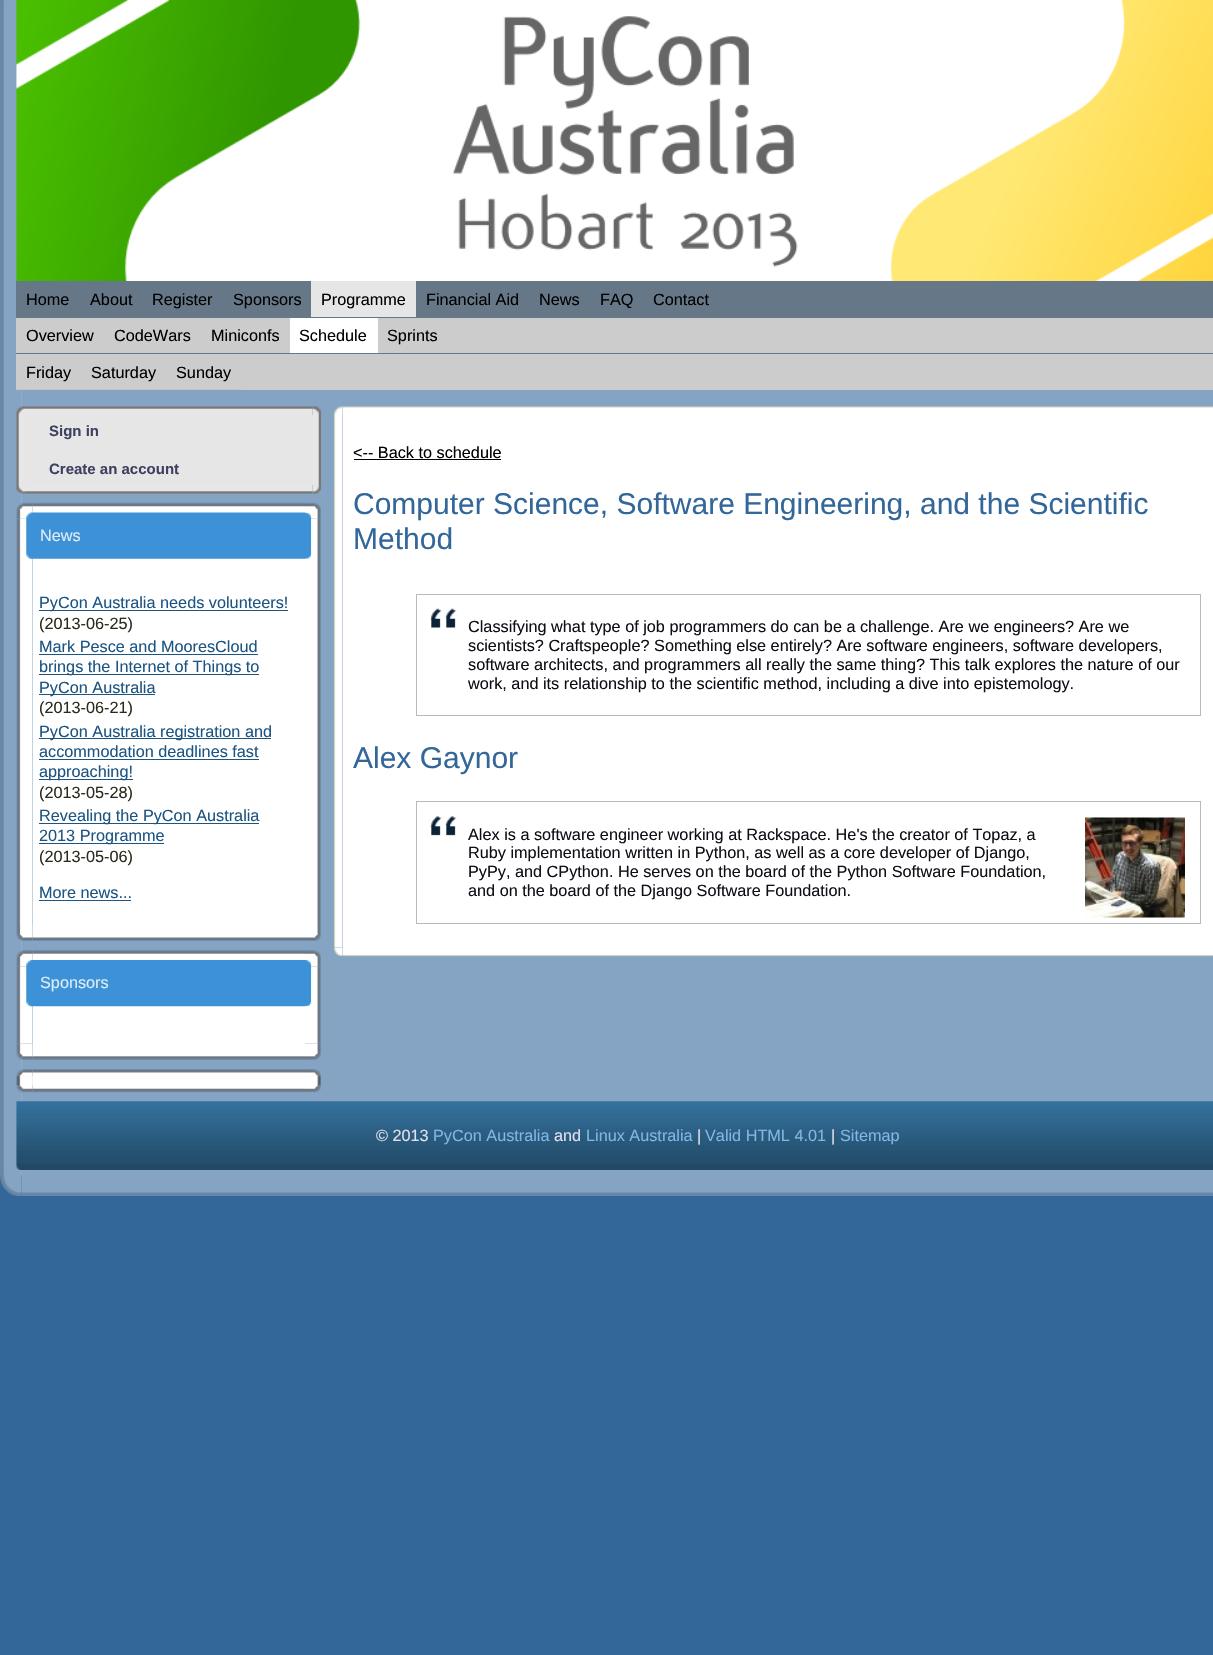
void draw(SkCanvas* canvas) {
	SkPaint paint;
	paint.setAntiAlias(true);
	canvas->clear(0xff336699);
	canvas->drawImageRect(SkImages::DeferredFromEncodedData(SkData::MakeFromFileName("img1.png")), SkRect::MakeXYWH(0, 0, 17, 5), SkSamplingOptions());
	canvas->drawImageRect(SkImages::DeferredFromEncodedData(SkData::MakeFromFileName("img2.png")), SkRect::MakeXYWH(0, 5, 22, 1170), SkSamplingOptions());
	canvas->drawImageRect(SkImages::DeferredFromEncodedData(SkData::MakeFromFileName("img3.png")), SkRect::MakeXYWH(16, 0, 1197, 281), SkSamplingOptions());
	paint.setColor(0xff667788);
	canvas->drawRect(SkRect::MakeXYWH(16, 281, 1197, 37), paint);
	SkFont f1(fontMgr->matchFamilyStyle("Liberation Sans", SkFontStyle::Normal()), 16.25);
	f1.setSubpixel(true);
	paint.setColor(0xff000000);
	canvas->drawString("Home", 26, 305, f1, paint);
	canvas->drawString("About", 90, 305, f1, paint);
	canvas->drawString("Register", 152, 305, f1, paint);
	canvas->drawString("Sponsors", 233, 305, f1, paint);
	paint.setColor(0xffe6e6e6);
	canvas->drawRect(SkRect::MakeXYWH(311, 281, 105, 36), paint);
	paint.setColor(0xff000000);
	canvas->drawString("Programme", 321, 305, f1, paint);
	canvas->drawString("Financial Aid", 426, 305, f1, paint);
	canvas->drawString("News", 539, 305, f1, paint);
	canvas->drawString("FAQ", 600, 305, f1, paint);
	canvas->drawString("Contact", 653, 305, f1, paint);
	paint.setColor(0xffcccccc);
	canvas->drawRect(SkRect::MakeXYWH(16, 318, 1197, 35), paint);
	paint.setColor(0xff000000);
	canvas->drawString("Overview", 26, 341, f1, paint);
	canvas->drawString("CodeWars", 114, 341, f1, paint);
	canvas->drawString("Miniconfs", 211, 341, f1, paint);
	paint.setColor(0xffffffff);
	canvas->drawRect(SkRect::MakeXYWH(290, 318, 88, 35), paint);
	paint.setColor(0xff000000);
	canvas->drawString("Schedule", 299, 341, f1, paint);
	canvas->drawString("Sprints", 387, 341, f1, paint);
	paint.setColor(0xff667788);
	canvas->drawRect(SkRect::MakeXYWH(16, 353, 1197, 1), paint);
	paint.setColor(0xffcccccc);
	canvas->drawRect(SkRect::MakeXYWH(16, 354, 1197, 36), paint);
	paint.setColor(0xff000000);
	canvas->drawString("Friday", 26, 378, f1, paint);
	canvas->drawImageRect(SkImages::DeferredFromEncodedData(SkData::MakeFromFileName("img4.png")), SkRect::MakeXYWH(16, 389, 65, 1), SkSamplingOptions());
	canvas->drawString("Saturday", 91, 378, f1, paint);
	canvas->drawImageRect(SkImages::DeferredFromEncodedData(SkData::MakeFromFileName("img5.png")), SkRect::MakeXYWH(81, 389, 85, 1), SkSamplingOptions());
	canvas->drawString("Sunday", 176, 378, f1, paint);
	canvas->drawImageRect(SkImages::DeferredFromEncodedData(SkData::MakeFromFileName("img6.png")), SkRect::MakeXYWH(166, 389, 75, 1), SkSamplingOptions());
	paint.setColor(0x66ffffff);
	canvas->drawRect(SkRect::MakeXYWH(21, 390, 1192, 785), paint);
	canvas->drawImageRect(SkImages::DeferredFromEncodedData(SkData::MakeFromFileName("img7.png")), SkRect::MakeXYWH(16, 406, 9, 9), SkSamplingOptions());
	canvas->drawImageRect(SkImages::DeferredFromEncodedData(SkData::MakeFromFileName("img9.png")), SkRect::MakeXYWH(312, 406, 10, 9), SkSamplingOptions());
	canvas->drawImageRect(SkImages::DeferredFromEncodedData(SkData::MakeFromFileName("img8.png")), SkRect::MakeXYWH(25, 406, 288, 9), SkSamplingOptions());
	canvas->drawImageRect(SkImages::DeferredFromEncodedData(SkData::MakeFromFileName("img10.png")), SkRect::MakeXYWH(16, 415, 9, 70), SkSamplingOptions());
	paint.setColor(0xffe6e6e6);
	canvas->drawRect(SkRect::MakeXYWH(25, 415, 288, 70), paint);
	canvas->drawImageRect(SkImages::DeferredFromEncodedData(SkData::MakeFromFileName("img11.png")), SkRect::MakeXYWH(313, 415, 9, 70), SkSamplingOptions());
	SkFont f2(fontMgr->matchFamilyStyle("Liberation Sans", SkFontStyle::Bold()), 15);
	f2.setSubpixel(true);
	paint.setColor(0xff3e4060);
	canvas->drawString("Sign in", 49, 436, f2, paint);
	canvas->drawString("Create an account", 49, 474, f2, paint);
	canvas->drawImageRect(SkImages::DeferredFromEncodedData(SkData::MakeFromFileName("img12.png")), SkRect::MakeXYWH(16, 485, 9, 9), SkSamplingOptions());
	canvas->drawImageRect(SkImages::DeferredFromEncodedData(SkData::MakeFromFileName("img14.png")), SkRect::MakeXYWH(312, 485, 10, 9), SkSamplingOptions());
	canvas->drawImageRect(SkImages::DeferredFromEncodedData(SkData::MakeFromFileName("img13.png")), SkRect::MakeXYWH(25, 485, 288, 9), SkSamplingOptions());
	canvas->drawImageRect(SkImages::DeferredFromEncodedData(SkData::MakeFromFileName("img15.png")), SkRect::MakeXYWH(16, 502, 17, 17), SkSamplingOptions());
	canvas->drawImageRect(SkImages::DeferredFromEncodedData(SkData::MakeFromFileName("img16.png")), SkRect::MakeXYWH(32, 502, 273, 12), SkSamplingOptions());
	canvas->drawImageRect(SkImages::DeferredFromEncodedData(SkData::MakeFromFileName("img17.png")), SkRect::MakeXYWH(305, 502, 16, 17), SkSamplingOptions());
	canvas->drawImageRect(SkImages::DeferredFromEncodedData(SkData::MakeFromFileName("img18.png")), SkRect::MakeXYWH(16, 519, 17, 406), SkSamplingOptions());
	paint.setColor(0xffffffff);
	canvas->drawRect(SkRect::MakeXYWH(33, 558, 272, 367), paint);
	canvas->drawImageRect(SkImages::DeferredFromEncodedData(SkData::MakeFromFileName("img19.png")), SkRect::MakeXYWH(26, 512, 279, 47), SkSamplingOptions());
	canvas->drawImageRect(SkImages::DeferredFromEncodedData(SkData::MakeFromFileName("img21.png")), SkRect::MakeXYWH(305, 519, 16, 406), SkSamplingOptions());
	canvas->drawImageRect(SkImages::DeferredFromEncodedData(SkData::MakeFromFileName("img20.png")), SkRect::MakeXYWH(305, 512, 7, 47), SkSamplingOptions());
	paint.setColor(0xffddecf8);
	canvas->drawString("News", 40, 541, f1, paint);
	paint.setColor(0xff1c5482);
	canvas->drawRect(SkRect::MakeXYWH(39, 610, 249, 1), paint);
	canvas->drawString("PyCon Australia needs volunteers!", 39, 608, f1, paint);
	paint.setColor(0xff2a2b1c);
	canvas->drawString("(2013-06-25)", 39, 629, f1, paint);
	paint.setColor(0xff1c5482);
	canvas->drawString("Mark Pesce and MooresCloud", 39, 652, f1, paint);
	canvas->drawRect(SkRect::MakeXYWH(39, 654, 219, 1), paint);
	canvas->drawRect(SkRect::MakeXYWH(39, 674, 220, 1), paint);
	canvas->drawString("brings the Internet of Things to", 39, 672, f1, paint);
	canvas->drawRect(SkRect::MakeXYWH(39, 694, 116, 1), paint);
	canvas->drawString("PyCon Australia", 39, 693, f1, paint);
	paint.setColor(0xff2a2b1c);
	canvas->drawString("(2013-06-21)", 39, 713, f1, paint);
	paint.setColor(0xff1c5482);
	canvas->drawRect(SkRect::MakeXYWH(39, 738, 232, 1), paint);
	canvas->drawString("PyCon Australia registration and", 39, 737, f1, paint);
	canvas->drawString("accommodation deadlines fast", 39, 757, f1, paint);
	canvas->drawRect(SkRect::MakeXYWH(39, 759, 220, 1), paint);
	canvas->drawRect(SkRect::MakeXYWH(39, 779, 94, 1), paint);
	canvas->drawString("approaching!", 39, 777, f1, paint);
	paint.setColor(0xff2a2b1c);
	canvas->drawString("(2013-05-28)", 39, 798, f1, paint);
	paint.setColor(0xff1c5482);
	canvas->drawRect(SkRect::MakeXYWH(39, 823, 220, 1), paint);
	canvas->drawString("Revealing the PyCon Australia", 39, 821, f1, paint);
	canvas->drawRect(SkRect::MakeXYWH(39, 843, 125, 1), paint);
	canvas->drawString("2013 Programme", 39, 841, f1, paint);
	paint.setColor(0xff2a2b1c);
	canvas->drawString("(2013-05-06)", 39, 862, f1, paint);
	paint.setColor(0xff1c5482);
	canvas->drawString("More news...", 39, 898, f1, paint);
	canvas->drawRect(SkRect::MakeXYWH(39, 900, 92, 1), paint);
	canvas->drawImageRect(SkImages::DeferredFromEncodedData(SkData::MakeFromFileName("img22.png")), SkRect::MakeXYWH(16, 925, 17, 16), SkSamplingOptions());
	canvas->drawImageRect(SkImages::DeferredFromEncodedData(SkData::MakeFromFileName("img23.png")), SkRect::MakeXYWH(32, 925, 273, 16), SkSamplingOptions());
	canvas->drawImageRect(SkImages::DeferredFromEncodedData(SkData::MakeFromFileName("img24.png")), SkRect::MakeXYWH(305, 925, 16, 16), SkSamplingOptions());
	canvas->drawImageRect(SkImages::DeferredFromEncodedData(SkData::MakeFromFileName("img25.png")), SkRect::MakeXYWH(16, 950, 17, 17), SkSamplingOptions());
	canvas->drawImageRect(SkImages::DeferredFromEncodedData(SkData::MakeFromFileName("img26.png")), SkRect::MakeXYWH(32, 950, 273, 12), SkSamplingOptions());
	canvas->drawImageRect(SkImages::DeferredFromEncodedData(SkData::MakeFromFileName("img27.png")), SkRect::MakeXYWH(305, 950, 16, 17), SkSamplingOptions());
	canvas->drawImageRect(SkImages::DeferredFromEncodedData(SkData::MakeFromFileName("img32.png")), SkRect::MakeXYWH(16, 1043, 17, 17), SkSamplingOptions());
	canvas->drawImageRect(SkImages::DeferredFromEncodedData(SkData::MakeFromFileName("img33.png")), SkRect::MakeXYWH(32, 1043, 273, 17), SkSamplingOptions());
	canvas->drawImageRect(SkImages::DeferredFromEncodedData(SkData::MakeFromFileName("img28.png")), SkRect::MakeXYWH(16, 966, 17, 78), SkSamplingOptions());
	paint.setColor(0xffffffff);
	canvas->drawRect(SkRect::MakeXYWH(33, 1006, 272, 38), paint);
	canvas->drawImageRect(SkImages::DeferredFromEncodedData(SkData::MakeFromFileName("img29.png")), SkRect::MakeXYWH(26, 960, 279, 47), SkSamplingOptions());
	canvas->drawImageRect(SkImages::DeferredFromEncodedData(SkData::MakeFromFileName("img34.png")), SkRect::MakeXYWH(305, 1043, 16, 17), SkSamplingOptions());
	canvas->drawImageRect(SkImages::DeferredFromEncodedData(SkData::MakeFromFileName("img31.png")), SkRect::MakeXYWH(305, 966, 16, 78), SkSamplingOptions());
	canvas->drawImageRect(SkImages::DeferredFromEncodedData(SkData::MakeFromFileName("img30.png")), SkRect::MakeXYWH(305, 960, 7, 47), SkSamplingOptions());
	paint.setColor(0xffddecf8);
	canvas->drawString("Sponsors", 40, 988, f1, paint);
	canvas->drawImageRect(SkImages::DeferredFromEncodedData(SkData::MakeFromFileName("img35.png")), SkRect::MakeXYWH(16, 1069, 17, 16), SkSamplingOptions());
	canvas->drawImageRect(SkImages::DeferredFromEncodedData(SkData::MakeFromFileName("img38.png")), SkRect::MakeXYWH(16, 1076, 17, 17), SkSamplingOptions());
	canvas->drawImageRect(SkImages::DeferredFromEncodedData(SkData::MakeFromFileName("img36.png")), SkRect::MakeXYWH(32, 1069, 273, 16), SkSamplingOptions());
	canvas->drawImageRect(SkImages::DeferredFromEncodedData(SkData::MakeFromFileName("img37.png")), SkRect::MakeXYWH(305, 1069, 16, 16), SkSamplingOptions());
	canvas->drawImageRect(SkImages::DeferredFromEncodedData(SkData::MakeFromFileName("img39.png")), SkRect::MakeXYWH(32, 1076, 273, 17), SkSamplingOptions());
	canvas->drawImageRect(SkImages::DeferredFromEncodedData(SkData::MakeFromFileName("img40.png")), SkRect::MakeXYWH(305, 1076, 16, 17), SkSamplingOptions());
	canvas->drawImageRect(SkImages::DeferredFromEncodedData(SkData::MakeFromFileName("img41.png")), SkRect::MakeXYWH(333, 406, 10, 9), SkSamplingOptions());
	canvas->drawImageRect(SkImages::DeferredFromEncodedData(SkData::MakeFromFileName("img42.png")), SkRect::MakeXYWH(342, 406, 871, 9), SkSamplingOptions());
	canvas->drawImageRect(SkImages::DeferredFromEncodedData(SkData::MakeFromFileName("img47.png")), SkRect::MakeXYWH(333, 947, 10, 10), SkSamplingOptions());
	canvas->drawImageRect(SkImages::DeferredFromEncodedData(SkData::MakeFromFileName("img48.png")), SkRect::MakeXYWH(342, 947, 871, 10), SkSamplingOptions());
	canvas->drawImageRect(SkImages::DeferredFromEncodedData(SkData::MakeFromFileName("img43.png")), SkRect::MakeXYWH(333, 415, 10, 533), SkSamplingOptions());
	paint.setColor(0xffffffff);
	canvas->drawRect(SkRect::MakeXYWH(343, 415, 870, 533), paint);
	paint.setColor(0xff000000);
	canvas->drawString("<-- Back to schedule", 353, 458, f1, paint);
	canvas->drawRect(SkRect::MakeXYWH(354, 459, 147, 1), paint);
	SkFont f3(fontMgr->matchFamilyStyle("Liberation Sans", SkFontStyle::Normal()), 30);
	f3.setSubpixel(true);
	paint.setColor(0xff336699);
	canvas->drawString("Computer Science, Software Engineering, and the Scientific", 353, 514, f3, paint);
	canvas->drawString("Method", 353, 549, f3, paint);
	canvas->drawImageRect(SkImages::DeferredFromEncodedData(SkData::MakeFromFileName("img44.png")), SkRect::MakeXYWH(430, 608, 27, 20), SkSamplingOptions());
	paint.setStroke(true);
	paint.setStrokeWidth(1);
	paint.setColor(0xffb9b9b9);
	canvas->drawRect(SkRect::MakeXYWH(416.5, 594.5, 784, 121), paint);
	paint.setStroke(false);
	paint.setColor(0xff0e0e16);
	canvas->drawString("Classifying what type of job programmers do can be a challenge. Are we engineers? Are we", 468, 632, f1, paint);
	canvas->drawString("scientists? Craftspeople? Something else entirely? Are software engineers, software developers,", 468, 651, f1, paint);
	canvas->drawString("software architects, and programmers all really the same thing? This talk explores the nature of our", 468, 670, f1, paint);
	canvas->drawString("work, and its relationship to the scientific method, including a dive into epistemology.", 468, 689, f1, paint);
	paint.setColor(0xff336699);
	canvas->drawString("Alex Gaynor", 353, 768, f3, paint);
	canvas->drawImageRect(SkImages::DeferredFromEncodedData(SkData::MakeFromFileName("img45.png")), SkRect::MakeXYWH(430, 816, 27, 20), SkSamplingOptions());
	paint.setStroke(true);
	paint.setColor(0xffb9b9b9);
	canvas->drawRect(SkRect::MakeXYWH(416.5, 801.5, 784, 122), paint);
	paint.setStroke(false);
	paint.setColor(0xff0e0e16);
	canvas->drawString("Alex is a software engineer working at Rackspace. He's the creator of Topaz, a", 468, 840, f1, paint);
	canvas->drawString("Ruby implementation written in Python, as well as a core developer of Django,", 468, 858, f1, paint);
	canvas->drawString("PyPy, and CPython. He serves on the board of the Python Software Foundation,", 468, 877, f1, paint);
	canvas->drawString("and on the board of the Django Software Foundation.", 468, 896, f1, paint);
	canvas->drawImageRect(SkImages::DeferredFromEncodedData(SkData::MakeFromFileName("img46.png")), SkRect::MakeXYWH(1085, 817, 100, 101), SkSamplingOptions());
	canvas->drawImageRect(SkImages::DeferredFromEncodedData(SkData::MakeFromFileName("img49.png")), SkRect::MakeXYWH(16, 1101, 1197, 69), SkSamplingOptions());
	paint.setColor(0xffe1e0eb);
	canvas->drawString("© 2013", 376, 1141, f1, paint);
	paint.setColor(0xff81b7e4);
	canvas->drawString("PyCon Australia", 433, 1141, f1, paint);
	paint.setColor(0xffe1e0eb);
	canvas->drawString("and", 554, 1141, f1, paint);
	paint.setColor(0xff81b7e4);
	canvas->drawString("Linux Australia", 586, 1141, f1, paint);
	paint.setColor(0xffe1e0eb);
	canvas->drawString("|", 697, 1141, f1, paint);
	paint.setColor(0xff81b7e4);
	canvas->drawString("Valid HTML 4.01", 705, 1141, f1, paint);
	paint.setColor(0xffe1e0eb);
	canvas->drawString("|", 831, 1141, f1, paint);
	paint.setColor(0xff81b7e4);
	canvas->drawString("Sitemap", 840, 1141, f1, paint);
	canvas->drawImageRect(SkImages::DeferredFromEncodedData(SkData::MakeFromFileName("img50.png")), SkRect::MakeXYWH(0, 1175, 22, 21), SkSamplingOptions());
	canvas->drawImageRect(SkImages::DeferredFromEncodedData(SkData::MakeFromFileName("img51.png")), SkRect::MakeXYWH(21, 1175, 1192, 21), SkSamplingOptions());
}
